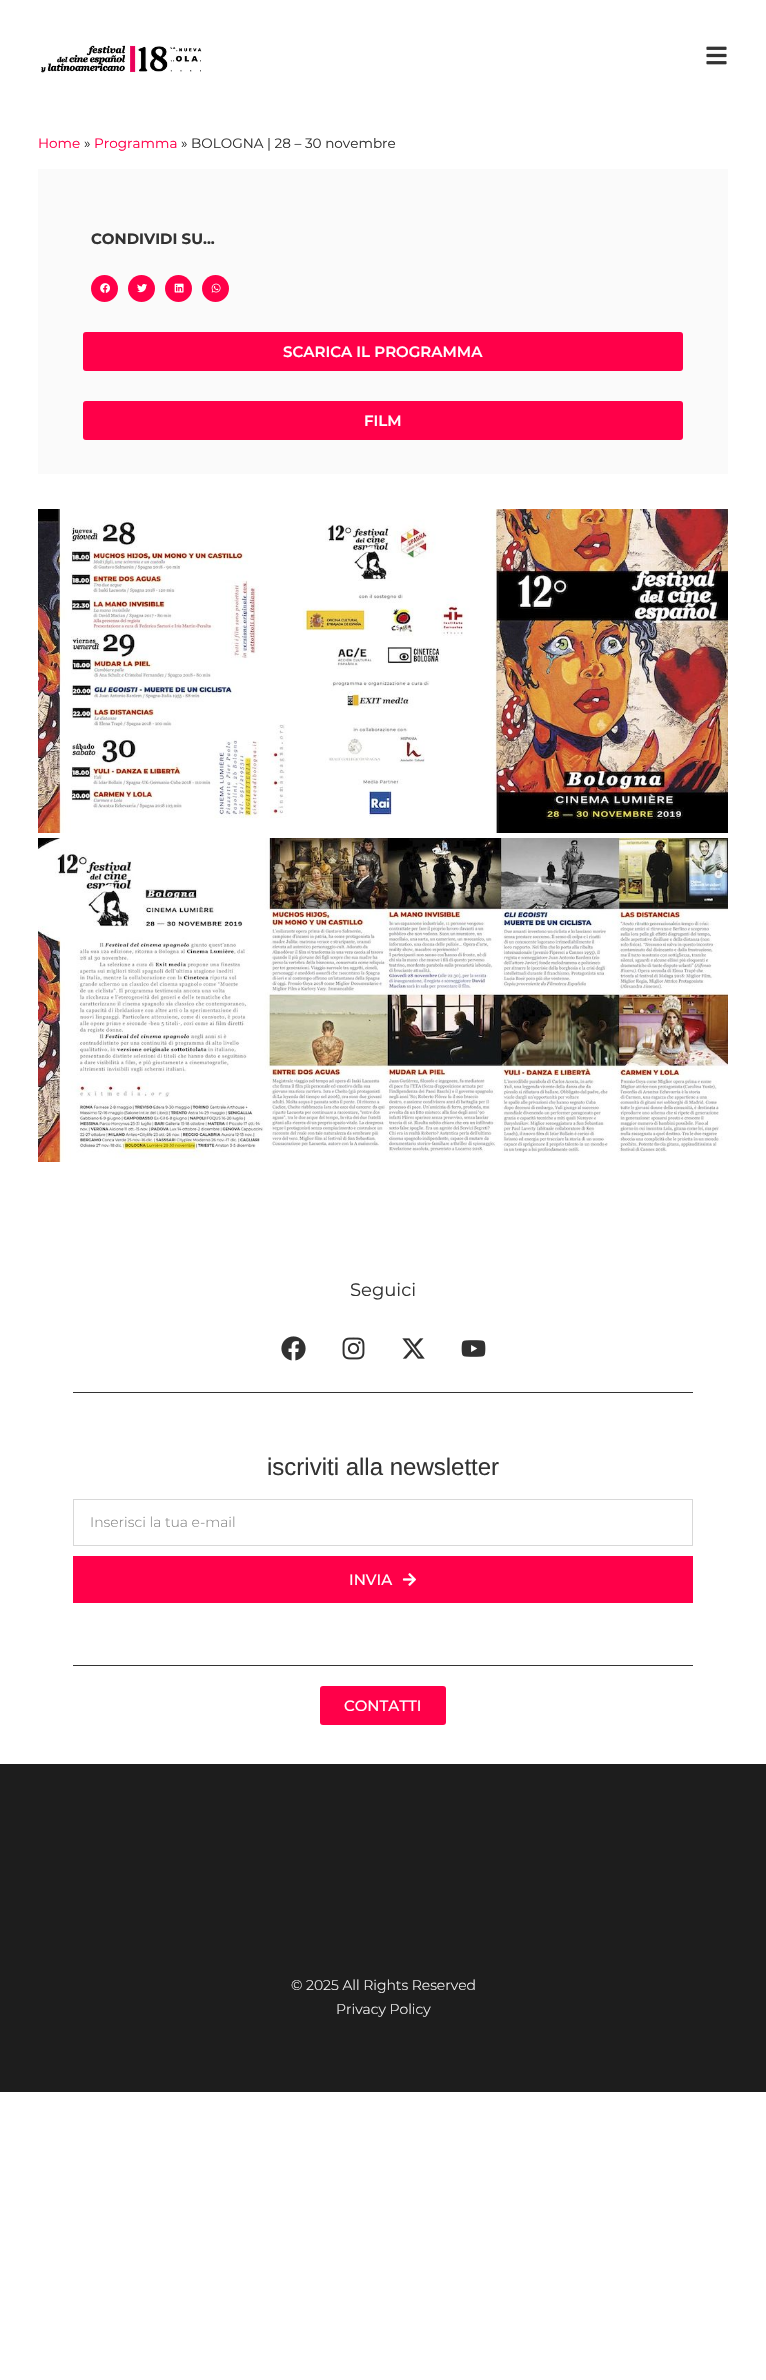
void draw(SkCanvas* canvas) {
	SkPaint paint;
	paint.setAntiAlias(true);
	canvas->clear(0xffffffff);
	canvas->drawImageRect(SkImages::DeferredFromEncodedData(SkData::MakeFromFileName("img1.png")), SkRect::MakeXYWH(41, 45, 161, 28), SkSamplingOptions());
	canvas->drawImageRect(SkImages::DeferredFromEncodedData(SkData::MakeFromFileName("img2.png")), SkRect::MakeXYWH(706, 46, 21, 19), SkSamplingOptions());
	SkFont f1(fontMgr->matchFamilyStyle("Montserrat", SkFontStyle::Normal()), 13.6);
	f1.setSubpixel(true);
	paint.setColor(0xffff0049);
	canvas->drawString("Home", 38, 148, f1, paint);
	paint.setColor(0xff333333);
	canvas->drawString("»", 84, 148, f1, paint);
	paint.setColor(0xffff0049);
	canvas->drawString("Programma", 94, 148, f1, paint);
	paint.setColor(0xff333333);
	canvas->drawString("» BOLOGNA | 28 – 30 novembre", 181, 148, f1, paint);
	paint.setColor(0xfffafafa);
	canvas->drawRect(SkRect::MakeXYWH(38, 169, 690, 305), paint);
	SkFont f2(fontMgr->matchFamilyStyle("Montserrat", SkFontStyle::Bold()), 15);
	f2.setSubpixel(true);
	paint.setColor(0xff333333);
	canvas->drawString("CONDIVIDI SU...", 91, 244, f2, paint);
	paint.setColor(0xffff0049);
	canvas->drawCircle(104.5, 288.5, 13.5, paint);
	canvas->drawImageRect(SkImages::DeferredFromEncodedData(SkData::MakeFromFileName("img3.png")), SkRect::MakeXYWH(100, 283, 10, 10), SkSamplingOptions());
	canvas->drawCircle(141.5, 288.5, 13.5, paint);
	canvas->drawImageRect(SkImages::DeferredFromEncodedData(SkData::MakeFromFileName("img4.png")), SkRect::MakeXYWH(137, 284, 10, 9), SkSamplingOptions());
	canvas->drawCircle(178.5, 288.5, 13.5, paint);
	canvas->drawImageRect(SkImages::DeferredFromEncodedData(SkData::MakeFromFileName("img5.png")), SkRect::MakeXYWH(174, 283, 10, 10), SkSamplingOptions());
	canvas->drawCircle(215.5, 288.5, 13.5, paint);
	canvas->drawImageRect(SkImages::DeferredFromEncodedData(SkData::MakeFromFileName("img6.png")), SkRect::MakeXYWH(211, 283, 10, 10), SkSamplingOptions());
	canvas->drawRoundRect(SkRect::MakeXYWH(83, 332, 600, 39), 3, 3, paint);
	SkFont f3(fontMgr->matchFamilyStyle("Montserrat", SkFontStyle(600, SkFontStyle::kNormal_Width, SkFontStyle::kUpright_Slant)), 15);
	f3.setSubpixel(true);
	paint.setColor(0xffffffff);
	canvas->drawString("SCARICA IL PROGRAMMA", 283, 357, f3, paint);
	paint.setColor(0xffff0049);
	canvas->drawRoundRect(SkRect::MakeXYWH(83, 401, 600, 39), 3, 3, paint);
	paint.setColor(0xffffffff);
	canvas->drawString("FILM", 364, 426, f3, paint);
	canvas->drawImageRect(SkImages::DeferredFromEncodedData(SkData::MakeFromFileName("img7.png")), SkRect::MakeXYWH(38, 509, 690, 324), SkSamplingOptions());
	canvas->drawImageRect(SkImages::DeferredFromEncodedData(SkData::MakeFromFileName("img8.png")), SkRect::MakeXYWH(38, 838, 690, 324), SkSamplingOptions());
	paint.setColor(0xff333333);
	canvas->drawRect(SkRect::MakeXYWH(73, 1392, 620, 1), paint);
	SkFont f4(fontMgr->matchFamilyStyle("Montserrat", SkFontStyle::Normal()), 18);
	f4.setSubpixel(true);
	canvas->drawString("Seguici", 350, 1296, f4, paint);
	canvas->drawImageRect(SkImages::DeferredFromEncodedData(SkData::MakeFromFileName("img9.png")), SkRect::MakeXYWH(281, 1336, 25, 25), SkSamplingOptions());
	canvas->drawImageRect(SkImages::DeferredFromEncodedData(SkData::MakeFromFileName("img10.png")), SkRect::MakeXYWH(342, 1337, 23, 23), SkSamplingOptions());
	canvas->drawImageRect(SkImages::DeferredFromEncodedData(SkData::MakeFromFileName("img11.png")), SkRect::MakeXYWH(402, 1338, 23, 21), SkSamplingOptions());
	canvas->drawImageRect(SkImages::DeferredFromEncodedData(SkData::MakeFromFileName("img12.png")), SkRect::MakeXYWH(461, 1340, 25, 17), SkSamplingOptions());
	SkFont f5(fontMgr->matchFamilyStyle("Liberation Sans", SkFontStyle::Normal()), 24);
	f5.setSubpixel(true);
	canvas->drawString("iscriviti alla newsletter", 267, 1475, f5, paint);
	paint.setStroke(true);
	paint.setStrokeWidth(1);
	paint.setColor(0xffd8d8d8);
	canvas->drawRect(SkRect::MakeXYWH(73.5, 1499.5, 619, 46), paint);
	SkFont f6(fontMgr->matchFamilyStyle("Montserrat", SkFontStyle(300, SkFontStyle::kNormal_Width, SkFontStyle::kUpright_Slant)), 14);
	f6.setSubpixel(true);
	paint.setStroke(false);
	paint.setColor(0xff868686);
	canvas->drawString("Inserisci la tua e-mail", 90, 1527, f6, paint);
	paint.setColor(0xffff0049);
	canvas->drawRect(SkRect::MakeXYWH(73, 1556, 620, 47), paint);
	SkFont f7(fontMgr->matchFamilyStyle("Montserrat", SkFontStyle(500, SkFontStyle::kNormal_Width, SkFontStyle::kUpright_Slant)), 15);
	f7.setSubpixel(true);
	paint.setColor(0xffffffff);
	canvas->drawString("INVIA", 349, 1585, f7, paint);
	canvas->drawImageRect(SkImages::DeferredFromEncodedData(SkData::MakeFromFileName("img13.png")), SkRect::MakeXYWH(402, 1573, 14, 13), SkSamplingOptions());
	paint.setColor(0xff333333);
	canvas->drawRect(SkRect::MakeXYWH(73, 1665, 620, 1), paint);
	paint.setColor(0xffff0049);
	canvas->drawRoundRect(SkRect::MakeXYWH(320, 1686, 126, 39), 3, 3, paint);
	paint.setColor(0xffffffff);
	canvas->drawString("CONTATTI", 344, 1711, f7, paint);
	paint.setColor(0xff1d1d1d);
	canvas->drawRect(SkRect::MakeXYWH(0, 1764, 766, 328), paint);
	paint.setColor(0xffffffff);
	canvas->drawString("© 2025 All Rights Reserved", 291, 1990, f6, paint);
	canvas->drawString("Privacy Policy", 336, 2014, f6, paint);
}
